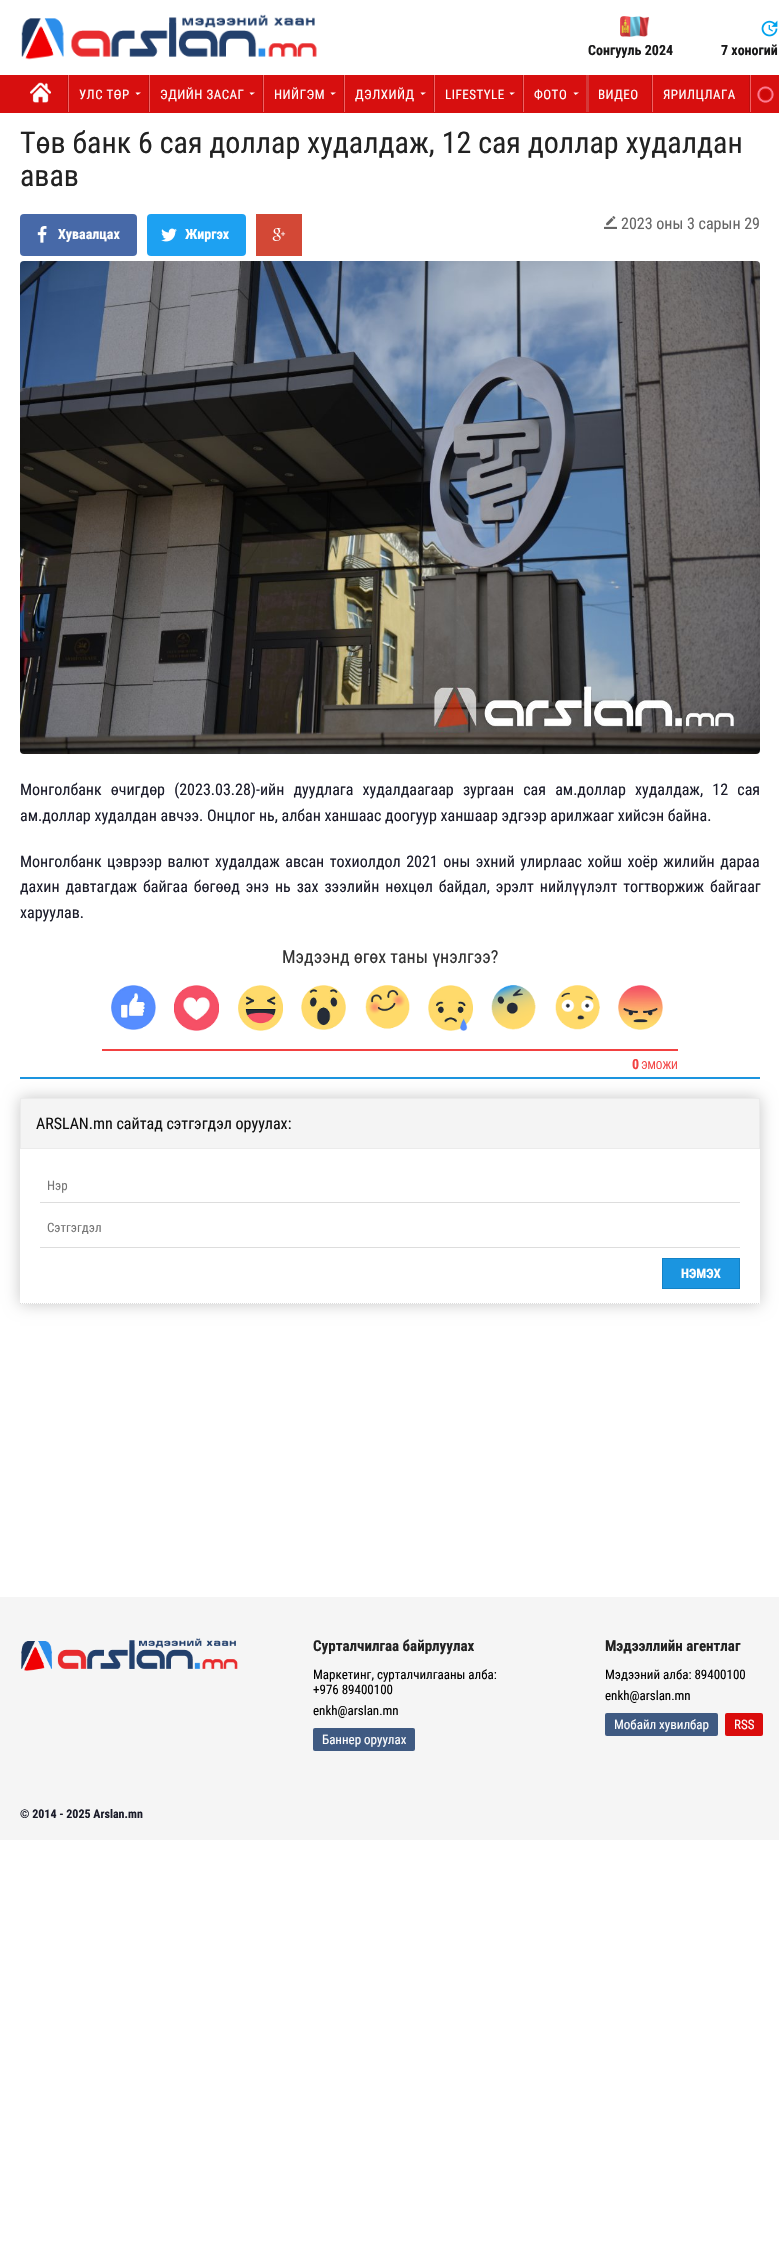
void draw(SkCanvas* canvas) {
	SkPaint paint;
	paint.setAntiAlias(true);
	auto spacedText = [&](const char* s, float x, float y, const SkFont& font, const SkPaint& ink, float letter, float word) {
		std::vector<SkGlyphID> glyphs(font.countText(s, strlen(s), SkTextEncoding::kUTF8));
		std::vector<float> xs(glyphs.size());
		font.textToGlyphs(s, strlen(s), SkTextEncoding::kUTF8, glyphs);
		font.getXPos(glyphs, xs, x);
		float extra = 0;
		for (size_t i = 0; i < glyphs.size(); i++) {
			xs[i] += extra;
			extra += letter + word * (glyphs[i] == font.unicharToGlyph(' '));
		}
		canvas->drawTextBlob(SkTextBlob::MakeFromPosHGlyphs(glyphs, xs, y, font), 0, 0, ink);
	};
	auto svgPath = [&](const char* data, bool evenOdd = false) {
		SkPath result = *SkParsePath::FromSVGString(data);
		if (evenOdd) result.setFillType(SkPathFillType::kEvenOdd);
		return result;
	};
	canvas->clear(0xffffffff);
	canvas->drawImageRect(SkImages::DeferredFromEncodedData(SkData::MakeFromFileName("img1.png")), SkRect::MakeXYWH(21, 14, 296, 46), SkSamplingOptions());
	canvas->drawImageRect(SkImages::DeferredFromEncodedData(SkData::MakeFromFileName("img2.png")), SkRect::MakeXYWH(620, 16, 30, 21), SkSamplingOptions());
	SkFont f1(fontMgr->matchFamilyStyle("Roboto Condensed", SkFontStyle::Bold()), 14);
	f1.setSubpixel(true);
	paint.setColor(0xff19191a);
	canvas->drawString("Сонгууль 2024", 588, 55, f1, paint);
	canvas->drawImageRect(SkImages::DeferredFromEncodedData(SkData::MakeFromFileName("img3.png")), SkRect::MakeXYWH(761, 20, 17, 17), SkSamplingOptions());
	canvas->drawString("7 хоногий", 721, 55, f1, paint);
	paint.setColor(0xffd70f0f);
	canvas->drawRect(SkRect::MakeXYWH(0, 75, 779, 38), paint);
	canvas->drawImageRect(SkImages::DeferredFromEncodedData(SkData::MakeFromFileName("img4.png")), SkRect::MakeXYWH(30, 82, 21, 21), SkSamplingOptions());
	canvas->drawImageRect(SkImages::DeferredFromEncodedData(SkData::MakeFromFileName("img5.png")), SkRect::MakeXYWH(67, 75, 2, 37), SkSamplingOptions());
	SkFont f2(fontMgr->matchFamilyStyle("Roboto Condensed", SkFontStyle::Normal()), 13);
	f2.setSubpixel(true);
	paint.setColor(0xffffffff);
	spacedText("УЛС ТӨР", 79, 99, f2, paint, 0.5, 0);
	canvas->drawPath(svgPath("M135.5 92.5H141L137.5 95Z"), paint);
	canvas->drawImageRect(SkImages::DeferredFromEncodedData(SkData::MakeFromFileName("img5.png")), SkRect::MakeXYWH(148, 75, 2, 37), SkSamplingOptions());
	spacedText("ЭДИЙН ЗАСАГ", 160, 99, f2, paint, 0.5, 0);
	canvas->drawPath(svgPath("M249.5 92.5H255L251.5 95Z"), paint);
	canvas->drawImageRect(SkImages::DeferredFromEncodedData(SkData::MakeFromFileName("img5.png")), SkRect::MakeXYWH(262, 75, 2, 37), SkSamplingOptions());
	spacedText("НИЙГЭМ", 274, 99, f2, paint, 0.5, 0);
	canvas->drawPath(svgPath("M330.5 92.5H336L332.5 95Z"), paint);
	canvas->drawImageRect(SkImages::DeferredFromEncodedData(SkData::MakeFromFileName("img5.png")), SkRect::MakeXYWH(343, 75, 2, 37), SkSamplingOptions());
	spacedText("ДЭЛХИЙД", 355, 99, f2, paint, 0.5, 0);
	canvas->drawPath(svgPath("M420.5 92.5H426L422.5 95Z"), paint);
	canvas->drawImageRect(SkImages::DeferredFromEncodedData(SkData::MakeFromFileName("img5.png")), SkRect::MakeXYWH(433, 75, 2, 37), SkSamplingOptions());
	spacedText("LIFESTYLE", 445, 99, f2, paint, 0.5, 0);
	canvas->drawPath(svgPath("M509.5 92.5H515L511.5 95Z"), paint);
	canvas->drawImageRect(SkImages::DeferredFromEncodedData(SkData::MakeFromFileName("img5.png")), SkRect::MakeXYWH(522, 75, 2, 37), SkSamplingOptions());
	spacedText("ФОТО", 534, 99, f2, paint, 0.5, 0);
	canvas->drawPath(svgPath("M573.5 92.5H579L575.5 95Z"), paint);
	paint.setColor(0xffd53838);
	canvas->drawRect(SkRect::MakeXYWH(586, 75, 3, 37), paint);
	paint.setColor(0xffffffff);
	spacedText("ВИДЕО", 598, 99, f2, paint, 0.5, 0);
	canvas->drawImageRect(SkImages::DeferredFromEncodedData(SkData::MakeFromFileName("img5.png")), SkRect::MakeXYWH(651, 75, 2, 37), SkSamplingOptions());
	spacedText("ЯРИЛЦЛАГА", 663, 99, f2, paint, 0.5, 0);
	canvas->drawImageRect(SkImages::DeferredFromEncodedData(SkData::MakeFromFileName("img5.png")), SkRect::MakeXYWH(749, 75, 2, 37), SkSamplingOptions());
	canvas->drawImageRect(SkImages::DeferredFromEncodedData(SkData::MakeFromFileName("img6.png")), SkRect::MakeXYWH(757, 86, 17, 17), SkSamplingOptions());
	SkFont f3(fontMgr->matchFamilyStyle("Roboto Condensed", SkFontStyle::Normal()), 30);
	f3.setSubpixel(true);
	paint.setColor(0xff222222);
	canvas->drawString("Төв банк 6 сая доллар худалдаж, 12 сая доллар худалдан", 20, 153, f3, paint);
	canvas->drawString("авав", 20, 186, f3, paint);
	canvas->drawImageRect(SkImages::DeferredFromEncodedData(SkData::MakeFromFileName("img7.png")), SkRect::MakeXYWH(604, 216, 13, 13), SkSamplingOptions());
	SkFont f4(fontMgr->matchFamilyStyle("Roboto Condensed", SkFontStyle::Normal()), 16);
	f4.setSubpixel(true);
	paint.setColor(0xff666666);
	canvas->drawString("2023 оны 3 сарын 29", 621, 229, f4, paint);
	paint.setColor(0xff4769a8);
	canvas->drawRoundRect(SkRect::MakeXYWH(20, 214, 117, 42), 4, 4, paint);
	canvas->drawImageRect(SkImages::DeferredFromEncodedData(SkData::MakeFromFileName("img8.png")), SkRect::MakeXYWH(37, 226, 10, 17), SkSamplingOptions());
	paint.setColor(0xffffffff);
	canvas->drawString("Хуваалцах", 58, 239, f1, paint);
	paint.setColor(0xff1da1f2);
	canvas->drawRoundRect(SkRect::MakeXYWH(147, 214, 99, 42), 4, 4, paint);
	canvas->drawImageRect(SkImages::DeferredFromEncodedData(SkData::MakeFromFileName("img9.png")), SkRect::MakeXYWH(161, 228, 16, 14), SkSamplingOptions());
	paint.setColor(0xffffffff);
	canvas->drawString("Жиргэх", 185, 239, f1, paint);
	paint.setColor(0xffd34836);
	canvas->drawRect(SkRect::MakeXYWH(256, 214, 46, 42), paint);
	canvas->drawImageRect(SkImages::DeferredFromEncodedData(SkData::MakeFromFileName("img10.png")), SkRect::MakeXYWH(272, 228, 14, 13), SkSamplingOptions());
	canvas->drawImageRect(SkImages::DeferredFromEncodedData(SkData::MakeFromFileName("img11.png")), SkRect::MakeXYWH(20, 261, 740, 493), SkSamplingOptions());
	paint.setColor(0xff1b1c2a);
	spacedText("Монголбанк өчигдөр (2023.03.28)-ийн дуудлага худалдаагаар зургаан сая ам.доллар худалдаж, 12 сая", 20, 795, f4, paint, 0, 5.5);
	canvas->drawString("ам.доллар худалдан авчээ. Онцлог нь, албан ханшаас доогуур ханшаар эдгээр арилжааг хийсэн байна.", 20, 821, f4, paint);
	spacedText("Монголбанк цэврээр валют худалдаж авсан тохиолдол 2021 оны эхний улирлаас хойш хоёр жилийн дараа", 20, 867, f4, paint, 0, 1.8);
	spacedText("дахин давтагдаж байгаа бөгөөд энэ нь зах зээлийн нөхцөл байдал, эрэлт нийлүүлэлт тогтворжиж байгааг", 20, 892, f4, paint, 0, 2.25);
	canvas->drawString("харуулав.", 20, 918, f4, paint);
	SkFont f5(fontMgr->matchFamilyStyle("Roboto Condensed", SkFontStyle::Normal()), 18);
	f5.setSubpixel(true);
	paint.setColor(0xff333333);
	canvas->drawString("Мэдээнд өгөх таны үнэлгээ?", 282, 963, f5, paint);
	canvas->drawImageRect(SkImages::DeferredFromEncodedData(SkData::MakeFromFileName("img12.png")), SkRect::MakeXYWH(111, 985, 45, 45), SkSamplingOptions());
	canvas->drawImageRect(SkImages::DeferredFromEncodedData(SkData::MakeFromFileName("img13.png")), SkRect::MakeXYWH(174, 985, 45, 46), SkSamplingOptions());
	canvas->drawImageRect(SkImages::DeferredFromEncodedData(SkData::MakeFromFileName("img14.png")), SkRect::MakeXYWH(238, 985, 45, 46), SkSamplingOptions());
	canvas->drawImageRect(SkImages::DeferredFromEncodedData(SkData::MakeFromFileName("img15.png")), SkRect::MakeXYWH(301, 985, 45, 45), SkSamplingOptions());
	canvas->drawImageRect(SkImages::DeferredFromEncodedData(SkData::MakeFromFileName("img16.png")), SkRect::MakeXYWH(365, 985, 45, 44), SkSamplingOptions());
	canvas->drawImageRect(SkImages::DeferredFromEncodedData(SkData::MakeFromFileName("img17.png")), SkRect::MakeXYWH(428, 985, 45, 46), SkSamplingOptions());
	canvas->drawImageRect(SkImages::DeferredFromEncodedData(SkData::MakeFromFileName("img18.png")), SkRect::MakeXYWH(491, 985, 45, 45), SkSamplingOptions());
	canvas->drawImageRect(SkImages::DeferredFromEncodedData(SkData::MakeFromFileName("img19.png")), SkRect::MakeXYWH(555, 985, 45, 45), SkSamplingOptions());
	canvas->drawImageRect(SkImages::DeferredFromEncodedData(SkData::MakeFromFileName("img20.png")), SkRect::MakeXYWH(618, 985, 45, 45), SkSamplingOptions());
	paint.setColor(0xfff24141);
	canvas->drawRect(SkRect::MakeXYWH(102, 1049, 576, 2), paint);
	canvas->drawString("0", 632, 1069, f1, paint);
	SkFont f6(fontMgr->matchFamilyStyle("Roboto Condensed", SkFontStyle::Normal()), 11);
	f6.setSubpixel(true);
	canvas->drawString("ЭМОЖИ", 641, 1069, f6, paint);
	paint.setColor(0xff1b95e0);
	canvas->drawRect(SkRect::MakeXYWH(20, 1077, 740, 2), paint);
	canvas->save();
	canvas->clipPath(svgPath("M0 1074H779V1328H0ZM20 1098H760V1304H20Z", true), true);
	paint.setColor(0x38000000);
	paint.setMaskFilter(SkMaskFilter::MakeBlur(kNormal_SkBlurStyle, 7.5));
	canvas->drawRect(SkRect::MakeXYWH(20, 1098, 740, 206), paint);
	paint.setMaskFilter(nullptr);
	canvas->restore();
	paint.setStroke(true);
	paint.setStrokeWidth(1);
	paint.setColor(0xffdddddd);
	paint.setPathEffect(SkDashPathEffect::Make({{1, 1}}, 0));
	canvas->drawPath(svgPath("M20 1303.5H760"), paint);
	paint.setPathEffect(nullptr);
	paint.setStroke(false);
	paint.setColor(0xfff4f4f4);
	canvas->drawRect(SkRect::MakeXYWH(20.5, 1098.5, 739, 50), paint);
	paint.setStroke(true);
	paint.setColor(0xffebebeb);
	canvas->drawRect(SkRect::MakeXYWH(20.5, 1098.5, 739, 50), paint);
	paint.setStroke(false);
	paint.setColor(0xff111111);
	canvas->drawString("ARSLAN.mn сайтад сэтгэгдэл оруулах:", 36, 1129, f4, paint);
	paint.setColor(0xffdddddd);
	canvas->drawRect(SkRect::MakeXYWH(40, 1202, 700, 1), paint);
	paint.setColor(0xff757575);
	canvas->drawString("Нэр", 47, 1190, f2, paint);
	paint.setColor(0xffdddddd);
	canvas->drawRect(SkRect::MakeXYWH(40, 1247, 700, 1), paint);
	paint.setColor(0xff757575);
	canvas->drawString("Сэтгэгдэл", 47, 1232, f2, paint);
	paint.setColor(0xff1b95e0);
	canvas->drawRect(SkRect::MakeXYWH(662.5, 1258.5, 77, 30), paint);
	paint.setStroke(true);
	paint.setColor(0xff1382c6);
	canvas->drawRect(SkRect::MakeXYWH(662.5, 1258.5, 77, 30), paint);
	SkFont f7(fontMgr->matchFamilyStyle("Roboto Condensed", SkFontStyle::Bold()), 13);
	f7.setSubpixel(true);
	paint.setStroke(false);
	paint.setColor(0xffffffff);
	canvas->drawString("НЭМЭХ", 681, 1278, f7, paint);
	paint.setColor(0xfff5f5f5);
	canvas->drawRect(SkRect::MakeXYWH(0, 1597, 779, 243), paint);
	canvas->drawImageRect(SkImages::DeferredFromEncodedData(SkData::MakeFromFileName("img21.png")), SkRect::MakeXYWH(21, 1638, 217, 33), SkSamplingOptions());
	SkFont f8(fontMgr->matchFamilyStyle("Roboto Condensed", SkFontStyle::Bold()), 15);
	f8.setSubpixel(true);
	paint.setColor(0xff222222);
	canvas->drawString("Сурталчилгаа байрлуулах", 313, 1651, f8, paint);
	paint.setColor(0xff000000);
	canvas->drawString("Маркетинг, сурталчилгааны алба:", 313, 1679, f2, paint);
	canvas->drawString("+976 89400100", 313, 1694, f2, paint);
	canvas->drawString("enkh@arslan.mn", 313, 1715, f2, paint);
	paint.setColor(0xff3f5a82);
	canvas->drawRoundRect(SkRect::MakeXYWH(313, 1728, 102, 23), 2, 2, paint);
	paint.setColor(0xffffffff);
	canvas->drawString("Баннер оруулах", 322, 1744, f2, paint);
	paint.setColor(0xff222222);
	canvas->drawString("Мэдээллийн агентлаг", 605, 1651, f8, paint);
	paint.setColor(0xff000000);
	canvas->drawString("Мэдээний алба: 89400100", 605, 1679, f2, paint);
	canvas->drawString("enkh@arslan.mn", 605, 1700, f2, paint);
	paint.setColor(0xff3f5a82);
	canvas->drawRoundRect(SkRect::MakeXYWH(605, 1713, 113, 23), 2, 2, paint);
	paint.setColor(0xffffffff);
	canvas->drawString("Мобайл хувилбар", 614, 1729, f2, paint);
	paint.setColor(0xffda0c0c);
	canvas->drawRoundRect(SkRect::MakeXYWH(725, 1713, 38, 23), 2, 2, paint);
	paint.setColor(0xffffffff);
	canvas->drawString("RSS", 734, 1729, f2, paint);
	SkFont f9(fontMgr->matchFamilyStyle("Roboto Condensed", SkFontStyle::Bold()), 12);
	f9.setSubpixel(true);
	paint.setColor(0xff1b1c2a);
	canvas->drawString("© 2014 - 2025 Arslan.mn", 20, 1818, f9, paint);
}
